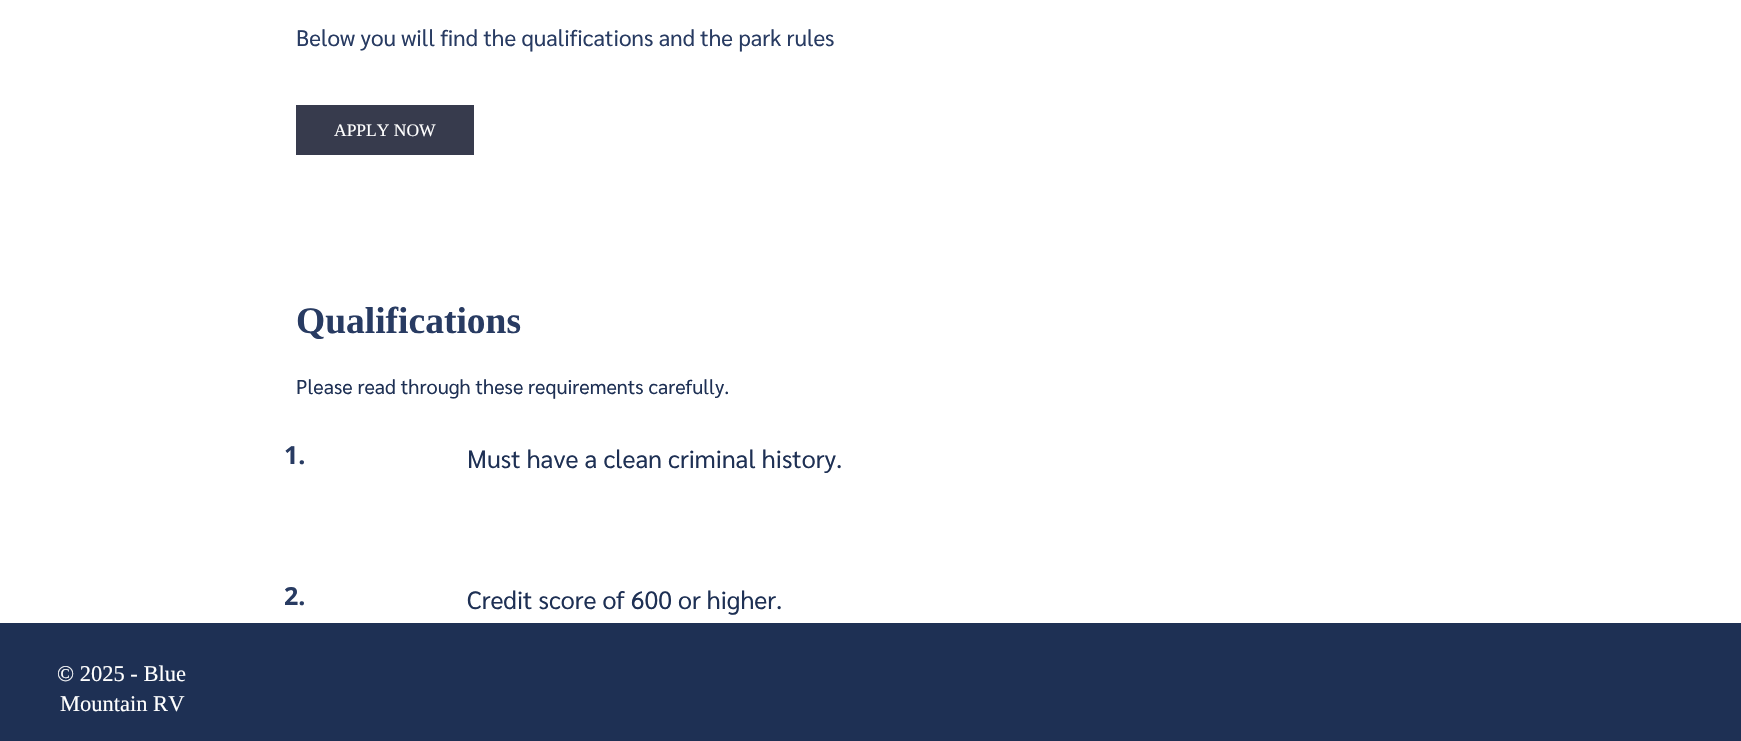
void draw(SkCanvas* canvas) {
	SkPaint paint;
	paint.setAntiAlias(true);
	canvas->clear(0xffffffff);
	SkFont f1(fontMgr->matchFamilyStyle("Sarabun", SkFontStyle::Normal()), 22.5);
	f1.setSubpixel(true);
	paint.setColor(0xff283b62);
	canvas->drawString("Below you will find the qualifications and the park rules", 296, 46, f1, paint);
	paint.setColor(0xff373b4d);
	canvas->drawRect(SkRect::MakeXYWH(296, 105, 178, 50), paint);
	SkFont f2(fontMgr->matchFamilyStyle("Liberation Serif", SkFontStyle::Normal()), 17.5);
	f2.setSubpixel(true);
	paint.setColor(0xffffffff);
	canvas->drawString("APPLY NOW", 334, 136, f2, paint);
	SkFont f3(fontMgr->matchFamilyStyle("Liberation Serif", SkFontStyle::Bold()), 37.5);
	f3.setSubpixel(true);
	paint.setColor(0xff283b62);
	canvas->drawString("Qualifications", 296, 333, f3, paint);
	SkFont f4(fontMgr->matchFamilyStyle("Sarabun", SkFontStyle::Normal()), 20);
	f4.setSubpixel(true);
	paint.setColor(0xff1e3054);
	canvas->drawString("Please read through these requirements carefully.", 296, 394, f4, paint);
	SkFont f5(fontMgr->matchFamilyStyle("Open Sans", SkFontStyle::Bold()), 25);
	f5.setSubpixel(true);
	paint.setColor(0xff283b62);
	canvas->drawString("1.", 284, 464, f5, paint);
	SkFont f6(fontMgr->matchFamilyStyle("Sarabun", SkFontStyle::Normal()), 25);
	f6.setSubpixel(true);
	paint.setColor(0xff1e3054);
	canvas->drawString("Must have a clean criminal history.", 467, 468, f6, paint);
	paint.setColor(0xff283b62);
	canvas->drawString("2.", 284, 605, f5, paint);
	paint.setColor(0xff1e3054);
	canvas->drawString("Credit score of 600 or higher.", 467, 609, f6, paint);
	canvas->drawRect(SkRect::MakeXYWH(0, 623, 1741, 118), paint);
	SkFont f7(fontMgr->matchFamilyStyle("Liberation Serif", SkFontStyle::Normal()), 22.5);
	f7.setSubpixel(true);
	paint.setColor(0xffffffff);
	canvas->drawString("© 2025 - Blue", 57, 681, f7, paint);
	canvas->drawString("Mountain RV", 60, 711, f7, paint);
}
